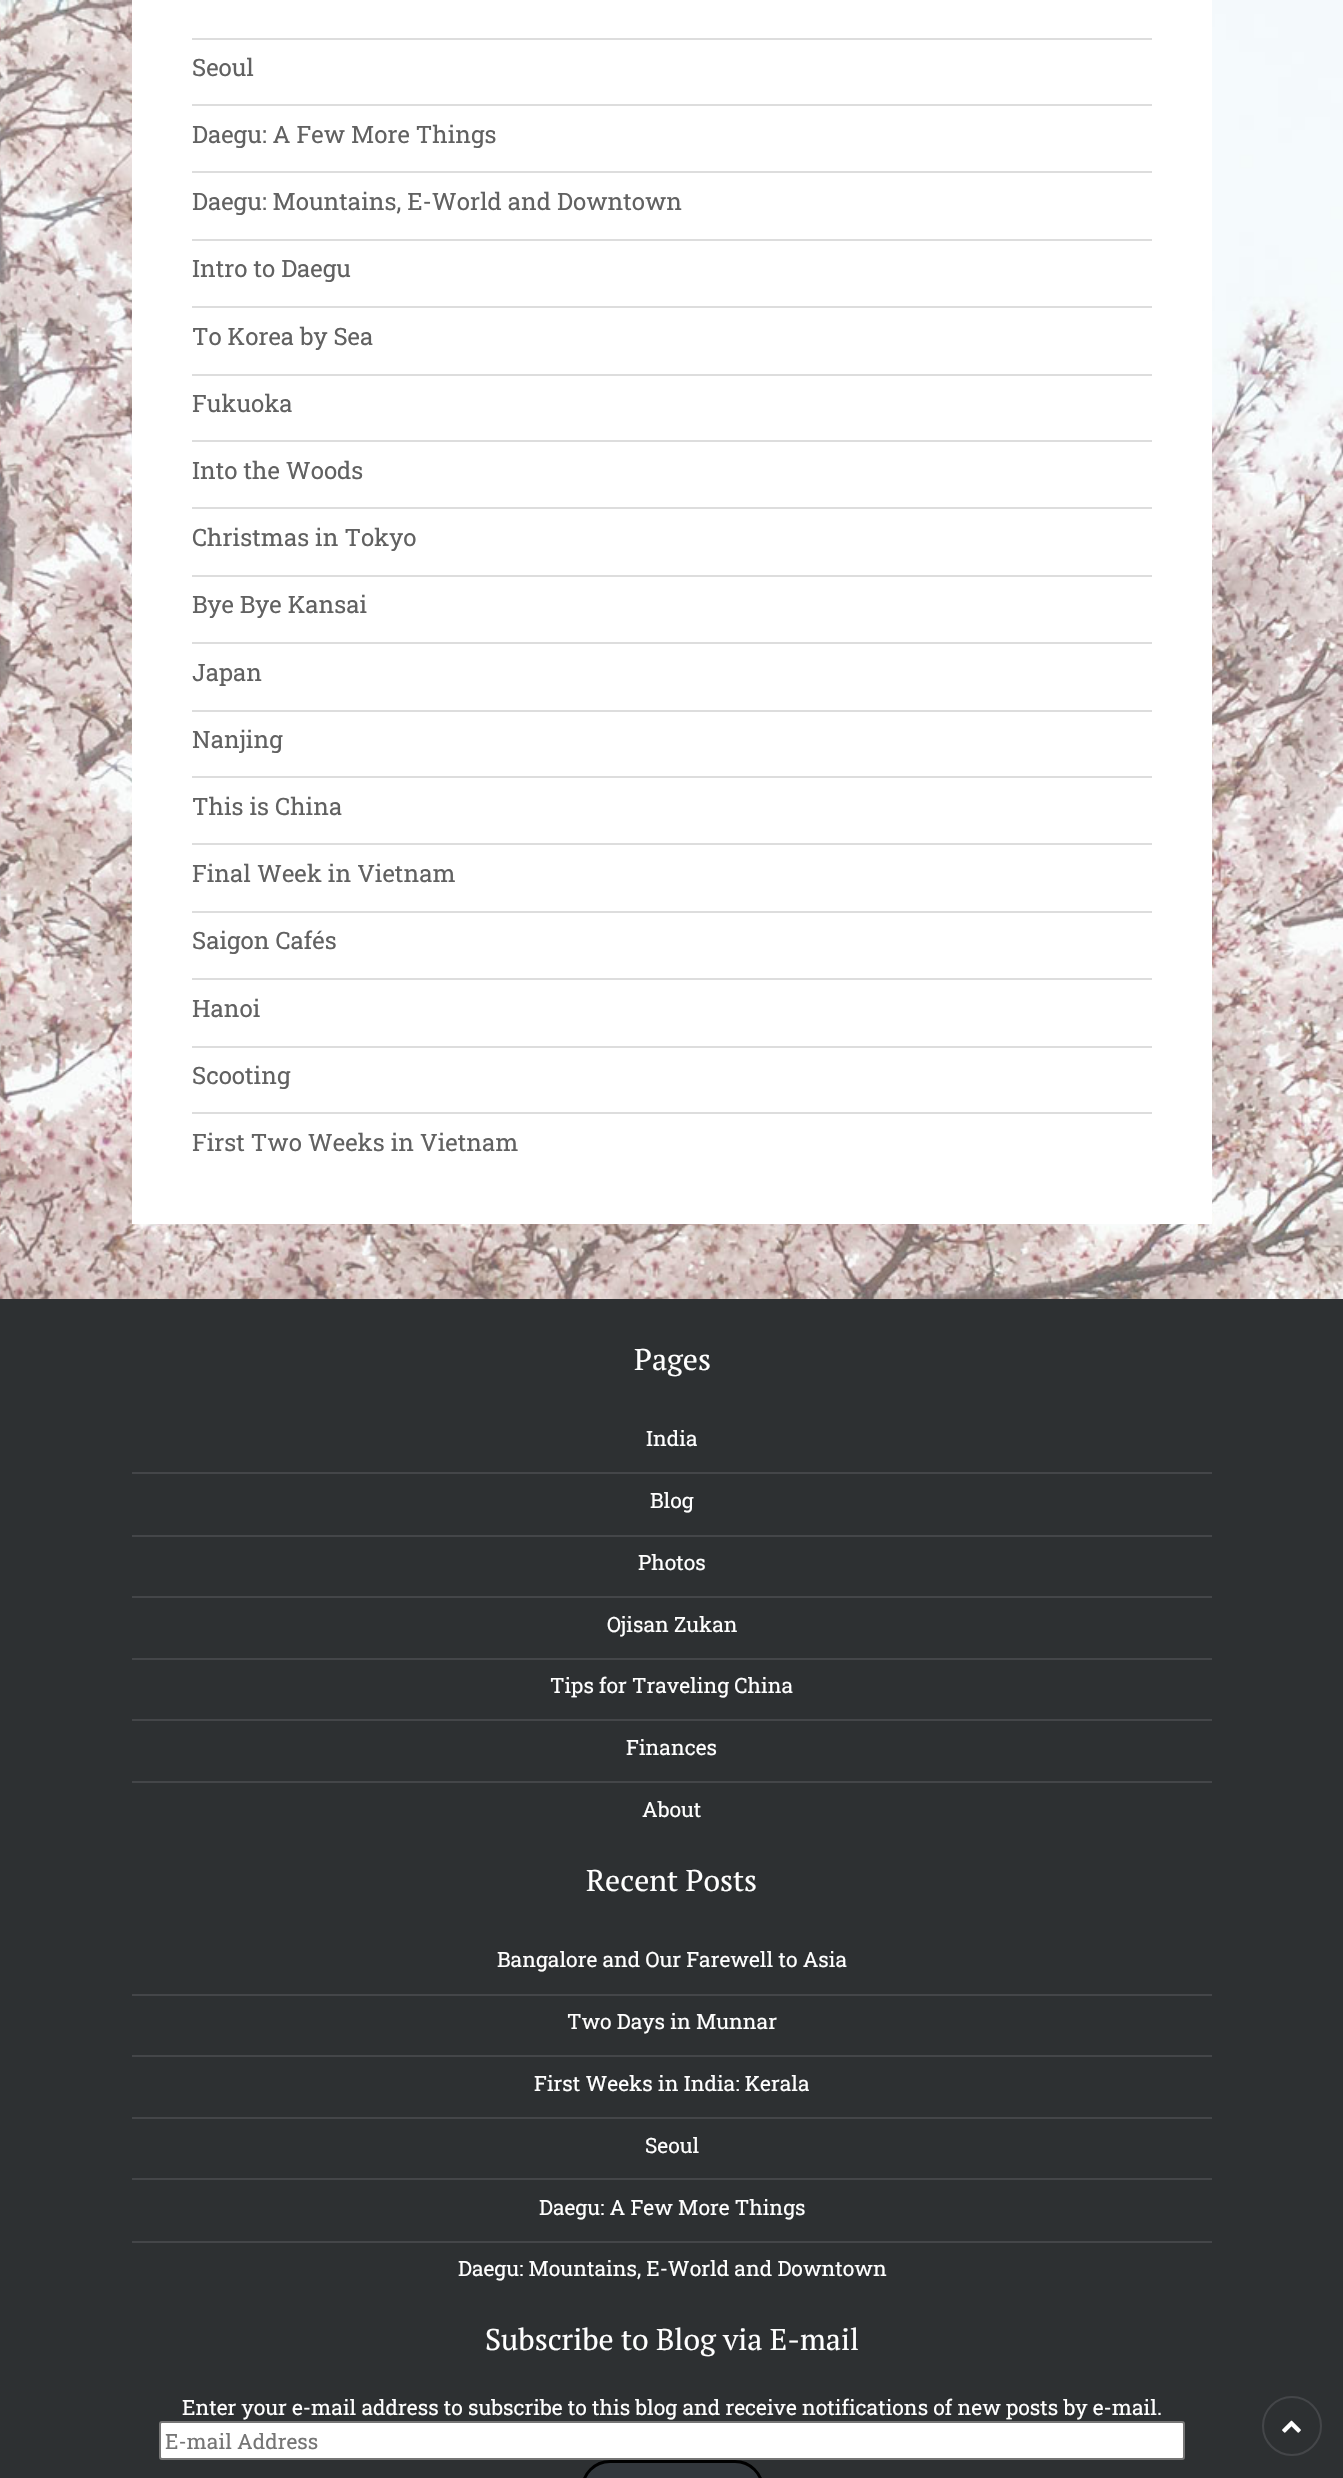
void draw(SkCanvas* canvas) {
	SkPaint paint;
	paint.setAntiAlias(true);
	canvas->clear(0xffffffff);
	canvas->drawImageRect(SkImages::DeferredFromEncodedData(SkData::MakeFromFileName("img1.png")), SkRect::MakeXYWH(0, 0, 1343, 1299), SkSamplingOptions());
	paint.setColor(0xffffffff);
	canvas->drawRect(SkRect::MakeXYWH(132, 0, 1080, 1224), paint);
	paint.setColor(0xffdddddd);
	canvas->drawRect(SkRect::MakeXYWH(192, 38, 960, 2), paint);
	canvas->drawRect(SkRect::MakeXYWH(192, 104, 960, 2), paint);
	SkFont f1(fontMgr->matchFamilyStyle("Roboto Slab", SkFontStyle::Normal()), 24);
	f1.setSubpixel(true);
	paint.setColor(0xff616161);
	canvas->drawString("Seoul", 192, 76, f1, paint);
	paint.setColor(0xffdddddd);
	canvas->drawRect(SkRect::MakeXYWH(192, 171, 960, 2), paint);
	paint.setColor(0xff616161);
	canvas->drawString("Daegu: A Few More Things", 192, 143, f1, paint);
	paint.setColor(0xffdddddd);
	canvas->drawRect(SkRect::MakeXYWH(192, 239, 960, 2), paint);
	paint.setColor(0xff616161);
	canvas->drawString("Daegu: Mountains, E-World and Downtown", 192, 210, f1, paint);
	paint.setColor(0xffdddddd);
	canvas->drawRect(SkRect::MakeXYWH(192, 306, 960, 2), paint);
	paint.setColor(0xff616161);
	canvas->drawString("Intro to Daegu", 192, 277, f1, paint);
	paint.setColor(0xffdddddd);
	canvas->drawRect(SkRect::MakeXYWH(192, 374, 960, 2), paint);
	paint.setColor(0xff616161);
	canvas->drawString("To Korea by Sea", 192, 345, f1, paint);
	paint.setColor(0xffdddddd);
	canvas->drawRect(SkRect::MakeXYWH(192, 440, 960, 2), paint);
	paint.setColor(0xff616161);
	canvas->drawString("Fukuoka", 192, 412, f1, paint);
	paint.setColor(0xffdddddd);
	canvas->drawRect(SkRect::MakeXYWH(192, 507, 960, 2), paint);
	paint.setColor(0xff616161);
	canvas->drawString("Into the Woods", 192, 479, f1, paint);
	paint.setColor(0xffdddddd);
	canvas->drawRect(SkRect::MakeXYWH(192, 575, 960, 2), paint);
	paint.setColor(0xff616161);
	canvas->drawString("Christmas in Tokyo", 192, 546, f1, paint);
	paint.setColor(0xffdddddd);
	canvas->drawRect(SkRect::MakeXYWH(192, 642, 960, 2), paint);
	paint.setColor(0xff616161);
	canvas->drawString("Bye Bye Kansai", 192, 613, f1, paint);
	paint.setColor(0xffdddddd);
	canvas->drawRect(SkRect::MakeXYWH(192, 710, 960, 2), paint);
	paint.setColor(0xff616161);
	canvas->drawString("Japan", 192, 681, f1, paint);
	paint.setColor(0xffdddddd);
	canvas->drawRect(SkRect::MakeXYWH(192, 776, 960, 2), paint);
	paint.setColor(0xff616161);
	canvas->drawString("Nanjing", 192, 748, f1, paint);
	paint.setColor(0xffdddddd);
	canvas->drawRect(SkRect::MakeXYWH(192, 843, 960, 2), paint);
	paint.setColor(0xff616161);
	canvas->drawString("This is China", 192, 815, f1, paint);
	paint.setColor(0xffdddddd);
	canvas->drawRect(SkRect::MakeXYWH(192, 911, 960, 2), paint);
	paint.setColor(0xff616161);
	canvas->drawString("Final Week in Vietnam", 192, 882, f1, paint);
	paint.setColor(0xffdddddd);
	canvas->drawRect(SkRect::MakeXYWH(192, 978, 960, 2), paint);
	paint.setColor(0xff616161);
	canvas->drawString("Saigon Cafés", 192, 949, f1, paint);
	paint.setColor(0xffdddddd);
	canvas->drawRect(SkRect::MakeXYWH(192, 1046, 960, 2), paint);
	paint.setColor(0xff616161);
	canvas->drawString("Hanoi", 192, 1017, f1, paint);
	paint.setColor(0xffdddddd);
	canvas->drawRect(SkRect::MakeXYWH(192, 1112, 960, 2), paint);
	paint.setColor(0xff616161);
	canvas->drawString("Scooting", 192, 1084, f1, paint);
	canvas->drawString("First Two Weeks in Vietnam", 192, 1151, f1, paint);
	paint.setColor(0xff2d3032);
	canvas->drawRect(SkRect::MakeXYWH(0, 1299, 1343, 1179), paint);
	SkFont f2(fontMgr->matchFamilyStyle("PT Serif", SkFontStyle::Normal()), 30);
	f2.setSubpixel(true);
	paint.setColor(0xffffffff);
	canvas->drawString("Pages", 634, 1370, f2, paint);
	paint.setColor(0xff444649);
	canvas->drawRect(SkRect::MakeXYWH(132, 1472, 1080, 2), paint);
	SkFont f3(fontMgr->matchFamilyStyle("Roboto Slab", SkFontStyle::Normal()), 21);
	f3.setSubpixel(true);
	paint.setColor(0xffffffff);
	canvas->drawString("India", 646, 1446, f3, paint);
	paint.setColor(0xff444649);
	canvas->drawRect(SkRect::MakeXYWH(132, 1535, 1080, 2), paint);
	paint.setColor(0xffffffff);
	canvas->drawString("Blog", 650, 1508, f3, paint);
	paint.setColor(0xff444649);
	canvas->drawRect(SkRect::MakeXYWH(132, 1596, 1080, 2), paint);
	paint.setColor(0xffffffff);
	canvas->drawString("Photos", 638, 1570, f3, paint);
	paint.setColor(0xff444649);
	canvas->drawRect(SkRect::MakeXYWH(132, 1658, 1080, 2), paint);
	paint.setColor(0xffffffff);
	canvas->drawString("Ojisan Zukan", 607, 1632, f3, paint);
	paint.setColor(0xff444649);
	canvas->drawRect(SkRect::MakeXYWH(132, 1719, 1080, 2), paint);
	paint.setColor(0xffffffff);
	canvas->drawString("Tips for Traveling China", 550, 1693, f3, paint);
	paint.setColor(0xff444649);
	canvas->drawRect(SkRect::MakeXYWH(132, 1781, 1080, 2), paint);
	paint.setColor(0xffffffff);
	canvas->drawString("Finances", 626, 1755, f3, paint);
	canvas->drawString("About", 642, 1817, f3, paint);
	canvas->drawString("Recent Posts", 586, 1891, f2, paint);
	paint.setColor(0xff444649);
	canvas->drawRect(SkRect::MakeXYWH(132, 1994, 1080, 2), paint);
	paint.setColor(0xffffffff);
	canvas->drawString("Bangalore and Our Farewell to Asia", 497, 1967, f3, paint);
	paint.setColor(0xff444649);
	canvas->drawRect(SkRect::MakeXYWH(132, 2055, 1080, 2), paint);
	paint.setColor(0xffffffff);
	canvas->drawString("Two Days in Munnar", 567, 2029, f3, paint);
	paint.setColor(0xff444649);
	canvas->drawRect(SkRect::MakeXYWH(132, 2117, 1080, 2), paint);
	paint.setColor(0xffffffff);
	canvas->drawString("First Weeks in India: Kerala", 534, 2091, f3, paint);
	paint.setColor(0xff444649);
	canvas->drawRect(SkRect::MakeXYWH(132, 2178, 1080, 2), paint);
	paint.setColor(0xffffffff);
	canvas->drawString("Seoul", 645, 2153, f3, paint);
	paint.setColor(0xff444649);
	canvas->drawRect(SkRect::MakeXYWH(132, 2241, 1080, 2), paint);
	paint.setColor(0xffffffff);
	canvas->drawString("Daegu: A Few More Things", 539, 2215, f3, paint);
	canvas->drawString("Daegu: Mountains, E-World and Downtown", 458, 2276, f3, paint);
	canvas->drawString("Subscribe to Blog via E-mail", 485, 2350, f2, paint);
	canvas->drawString("Enter your e-mail address to subscribe to this blog and receive notifications of new posts by e-mail.", 182, 2415, f3, paint);
	canvas->drawRoundRect(SkRect::MakeXYWH(160, 2422, 1024, 37), 2, 2, paint);
	paint.setStroke(true);
	paint.setStrokeWidth(2);
	paint.setColor(0xff767676);
	canvas->drawRoundRect(SkRect::MakeXYWH(160, 2422, 1024, 37), 2, 2, paint);
	paint.setStroke(false);
	paint.setColor(0xff757575);
	canvas->drawString("E-mail Address", 165, 2449, f3, paint);
	paint.setColor(0xff32373c);
	canvas->drawRoundRect(SkRect::MakeXYWH(582.5, 2461.5, 180, 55), 35.5, 35.5, paint);
	paint.setStroke(true);
	paint.setStrokeWidth(3);
	paint.setColor(0xff000000);
	canvas->drawRoundRect(SkRect::MakeXYWH(582.5, 2461.5, 180, 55), 35.5, 35.5, paint);
	paint.setStrokeWidth(2);
	paint.setColor(0xff444649);
	canvas->drawCircle(1292, 2426, 29, paint);
	canvas->drawImageRect(SkImages::DeferredFromEncodedData(SkData::MakeFromFileName("img2.png")), SkRect::MakeXYWH(1282, 2420, 19, 13), SkSamplingOptions());
}
